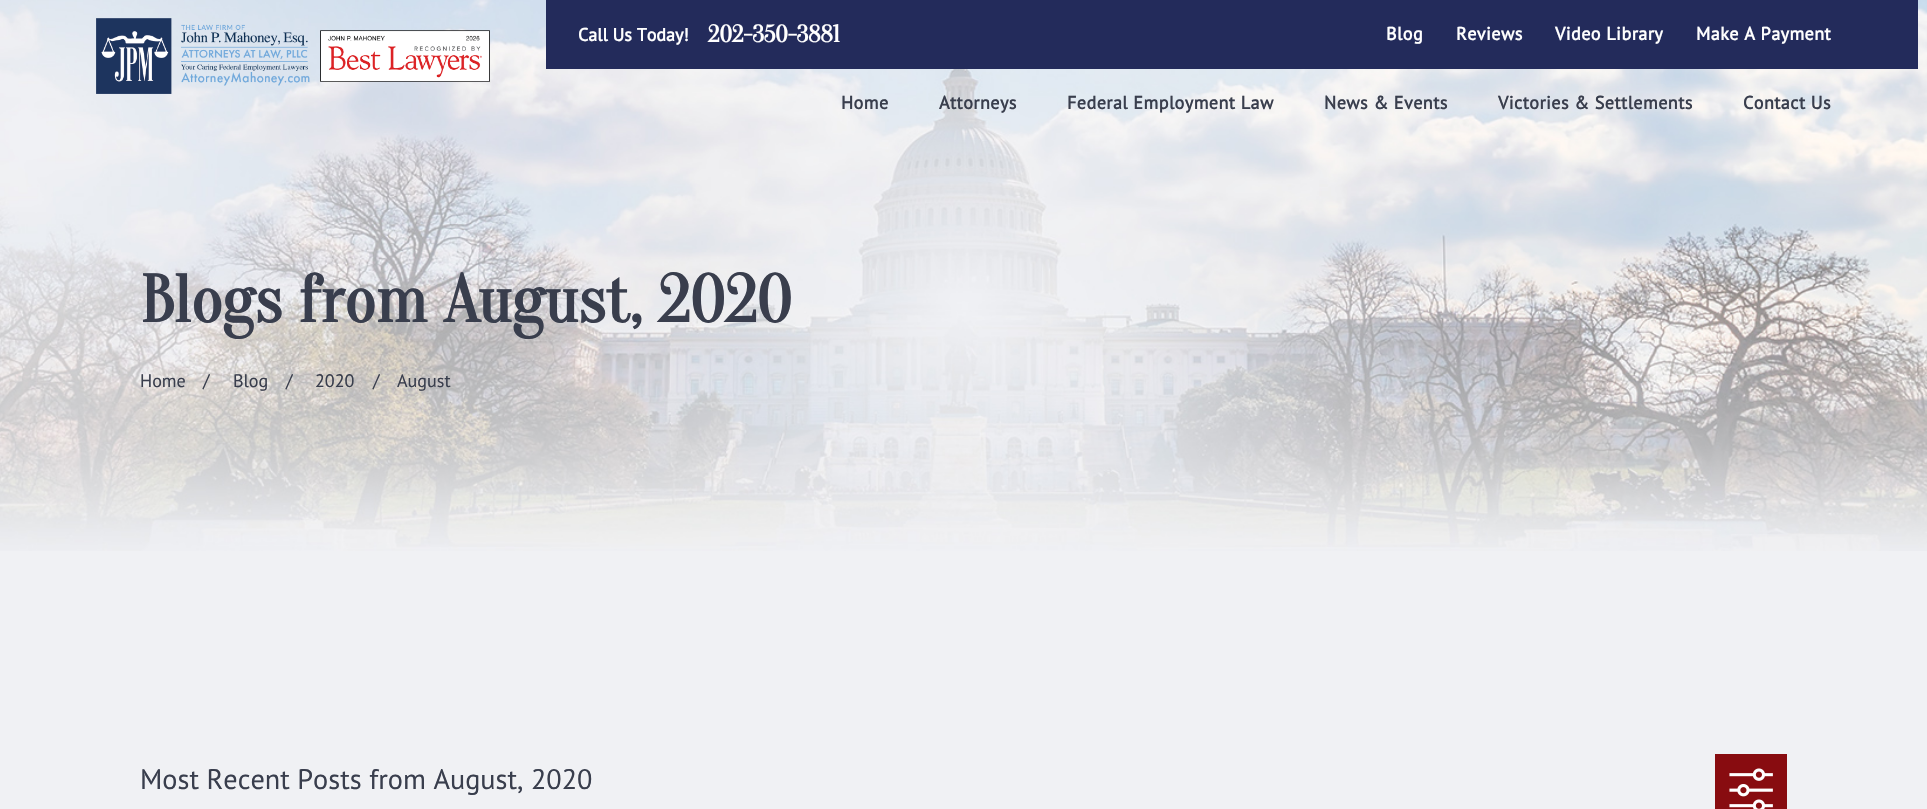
void draw(SkCanvas* canvas) {
	SkPaint paint;
	paint.setAntiAlias(true);
	auto spacedText = [&](const char* s, float x, float y, const SkFont& font, const SkPaint& ink, float letter, float word) {
		std::vector<SkGlyphID> glyphs(font.countText(s, strlen(s), SkTextEncoding::kUTF8));
		std::vector<float> xs(glyphs.size());
		font.textToGlyphs(s, strlen(s), SkTextEncoding::kUTF8, glyphs);
		font.getXPos(glyphs, xs, x);
		float extra = 0;
		for (size_t i = 0; i < glyphs.size(); i++) {
			xs[i] += extra;
			extra += letter + word * (glyphs[i] == font.unicharToGlyph(' '));
		}
		canvas->drawTextBlob(SkTextBlob::MakeFromPosHGlyphs(glyphs, xs, y, font), 0, 0, ink);
	};
	canvas->clear(0xfff0f1f4);
	canvas->drawImageRect(SkImages::DeferredFromEncodedData(SkData::MakeFromFileName("img2.png")), SkRect::MakeXYWH(0, 0, 1927, 551), SkSamplingOptions());
	canvas->drawImageRect(SkImages::DeferredFromEncodedData(SkData::MakeFromFileName("img1.png")), SkRect::MakeXYWH(96, 18, 394, 76), SkSamplingOptions());
	paint.setColor(0xff232b5b);
	canvas->drawRect(SkRect::MakeXYWH(546, 0, 1372, 69), paint);
	SkFont f1(fontMgr->matchFamilyStyle("PT Sans", SkFontStyle::Bold()), 18);
	f1.setSubpixel(true);
	paint.setColor(0xffffffff);
	canvas->drawString("Call Us Today!", 578, 41, f1, paint);
	SkFont f2(fontMgr->matchFamilyStyle("Oranienbaum", SkFontStyle::Bold()), 24);
	f2.setSubpixel(true);
	canvas->drawString("202-350-3881", 708, 42, f2, paint);
	SkFont f3(fontMgr->matchFamilyStyle("PT Sans", SkFontStyle::Bold()), 18.1);
	f3.setSubpixel(true);
	spacedText("Blog", 1386, 40, f3, paint, 0.45, 0);
	spacedText("Reviews", 1456, 40, f3, paint, 0.45, 0);
	spacedText("Video Library", 1555, 40, f3, paint, 0.45, 0);
	spacedText("Make A Payment", 1696, 40, f3, paint, 0.45, 0);
	paint.setColor(0xff393e4d);
	spacedText("Home", 841, 109, f3, paint, 0.45, 0);
	spacedText("Attorneys", 939, 109, f3, paint, 0.45, 0);
	spacedText("Federal Employment Law", 1067, 109, f3, paint, 0.45, 0);
	spacedText("News & Events", 1324, 109, f3, paint, 0.45, 0);
	spacedText("Victories & Settlements", 1498, 109, f3, paint, 0.45, 0);
	spacedText("Contact Us", 1743, 109, f3, paint, 0.45, 0);
	SkFont f4(fontMgr->matchFamilyStyle("Oranienbaum", SkFontStyle::Bold()), 67);
	f4.setSubpixel(true);
	canvas->drawString("Blogs from August, 2020", 140, 322, f4, paint);
	SkFont f5(fontMgr->matchFamilyStyle("PT Sans", SkFontStyle::Normal()), 18.1);
	f5.setSubpixel(true);
	canvas->drawString("Home", 140, 387, f5, paint);
	canvas->drawString("/", 203, 387, f5, paint);
	canvas->drawString("Blog", 233, 387, f5, paint);
	canvas->drawString("/", 286, 387, f5, paint);
	canvas->drawString("2020", 315, 387, f5, paint);
	canvas->drawString("/", 373, 387, f5, paint);
	canvas->drawString("August", 397, 387, f5, paint);
	SkFont f6(fontMgr->matchFamilyStyle("PT Sans", SkFontStyle::Normal()), 28.25);
	f6.setSubpixel(true);
	canvas->drawString("Most Recent Posts from August, 2020", 140, 789, f6, paint);
	paint.setColor(0xff880c10);
	canvas->drawRect(SkRect::MakeXYWH(1715, 754, 72, 55), paint);
	canvas->drawImageRect(SkImages::DeferredFromEncodedData(SkData::MakeFromFileName("img3.png")), SkRect::MakeXYWH(1729, 768, 44, 41), SkSamplingOptions());
}
